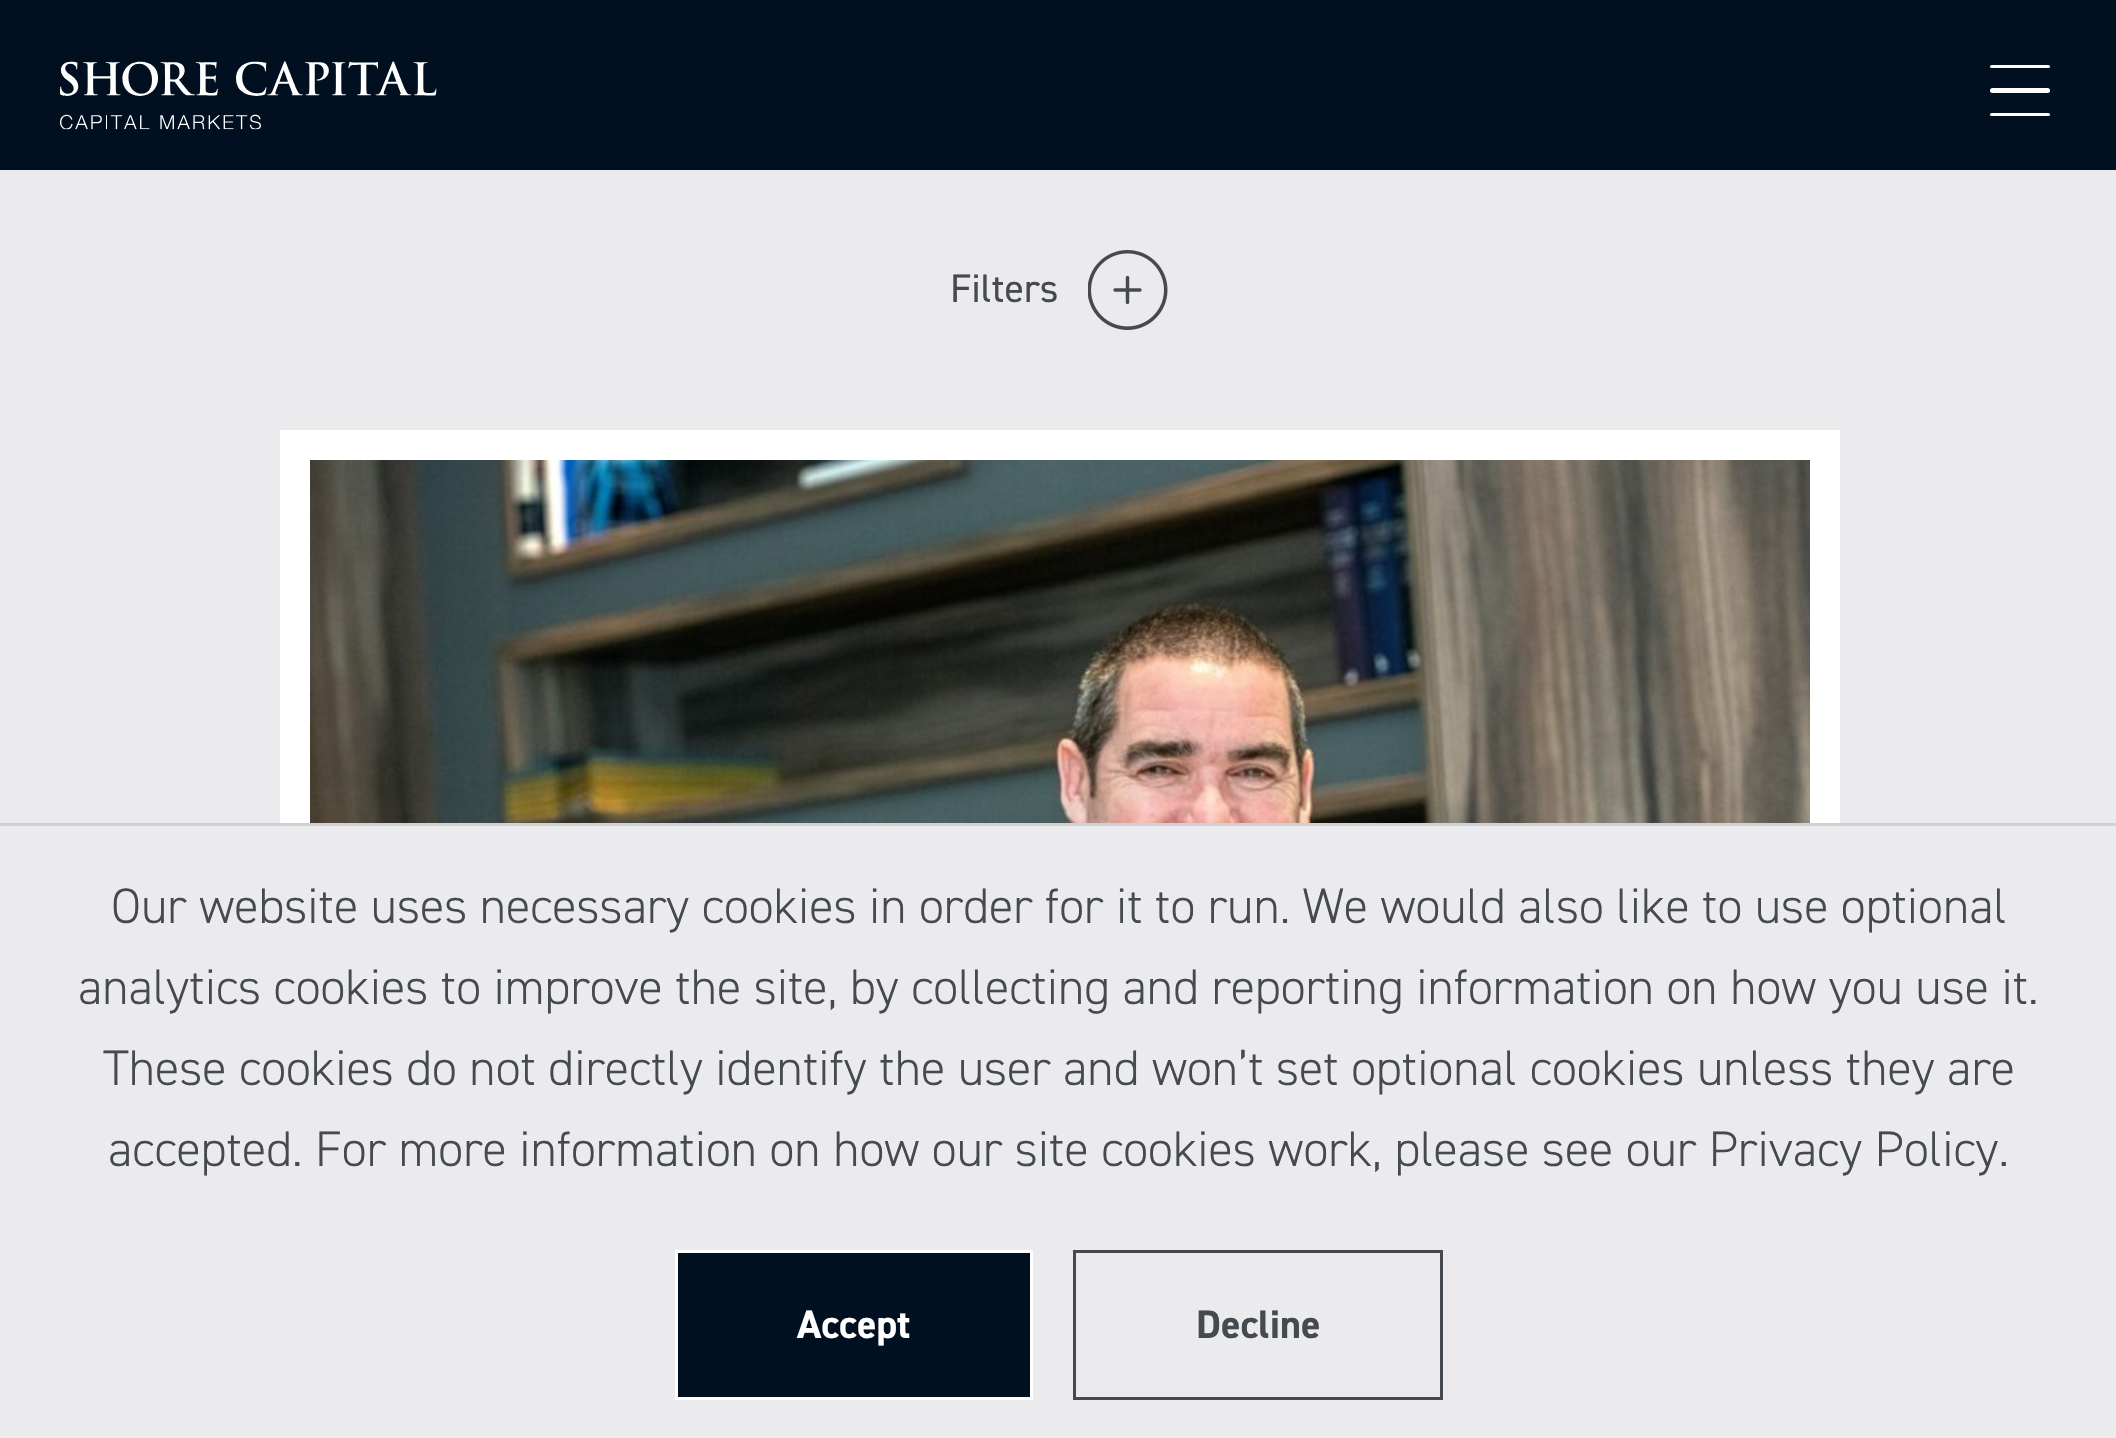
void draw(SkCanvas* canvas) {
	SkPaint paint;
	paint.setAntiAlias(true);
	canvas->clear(0xffebebed);
	paint.setColor(0xff001020);
	canvas->drawRect(SkRect::MakeXYWH(0, 0, 2116, 170), paint);
	canvas->drawImageRect(SkImages::DeferredFromEncodedData(SkData::MakeFromFileName("img1.png")), SkRect::MakeXYWH(60, 61, 377, 69), SkSamplingOptions());
	paint.setColor(0xffffffff);
	canvas->drawRoundRect(SkRect::MakeXYWH(1990, 88, 60, 5), 2.5, 2.5, paint);
	canvas->drawRoundRect(SkRect::MakeXYWH(1990, 65, 60, 3), 1.5, 1.5, paint);
	canvas->drawRoundRect(SkRect::MakeXYWH(1990, 113, 60, 3), 1.5, 1.5, paint);
	SkFont f1(fontMgr->matchFamilyStyle("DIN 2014", SkFontStyle::Normal()), 40);
	f1.setSubpixel(true);
	paint.setColor(0xff444a4f);
	canvas->drawString("Filters", 950, 302, f1, paint);
	canvas->drawImageRect(SkImages::DeferredFromEncodedData(SkData::MakeFromFileName("img2.png")), SkRect::MakeXYWH(1088, 250, 80, 80), SkSamplingOptions());
	paint.setColor(0xffffffff);
	canvas->drawRect(SkRect::MakeXYWH(280, 430, 1560, 393), paint);
	canvas->drawImageRect(SkImages::DeferredFromEncodedData(SkData::MakeFromFileName("img3.png")), SkRect::MakeXYWH(310, 460, 1500, 363), SkSamplingOptions());
	paint.setColor(0xffd0d1d6);
	canvas->drawRect(SkRect::MakeXYWH(0, 823, 2116, 3), paint);
	SkFont f2(fontMgr->matchFamilyStyle("DIN 2014", SkFontStyle(300, SkFontStyle::kNormal_Width, SkFontStyle::kUpright_Slant)), 50);
	f2.setSubpixel(true);
	paint.setColor(0xff444a4f);
	canvas->drawString("Our website uses necessary cookies in order for it to run. We would also like to use optional", 111, 923, f2, paint);
	canvas->drawString("analytics cookies to improve the site, by collecting and reporting information on how you use it.", 78, 1004, f2, paint);
	canvas->drawString("These cookies do not directly identify the user and won’t set optional cookies unless they are", 103, 1085, f2, paint);
	canvas->drawString("accepted. For more information on how our site cookies work, please see our Privacy Policy.", 108, 1166, f2, paint);
	paint.setColor(0xff001020);
	canvas->drawRect(SkRect::MakeXYWH(676.5, 1251.5, 355, 147), paint);
	paint.setStroke(true);
	paint.setStrokeWidth(3);
	paint.setColor(0xffffffff);
	canvas->drawRect(SkRect::MakeXYWH(676.5, 1251.5, 355, 147), paint);
	SkFont f3(fontMgr->matchFamilyStyle("DIN 2014", SkFontStyle::Bold()), 40);
	f3.setSubpixel(true);
	paint.setStroke(false);
	canvas->drawString("Accept", 797, 1338, f3, paint);
	paint.setStroke(true);
	paint.setColor(0xff444a4f);
	canvas->drawRect(SkRect::MakeXYWH(1074.5, 1251.5, 367, 147), paint);
	paint.setStroke(false);
	canvas->drawString("Decline", 1196, 1338, f3, paint);
}
